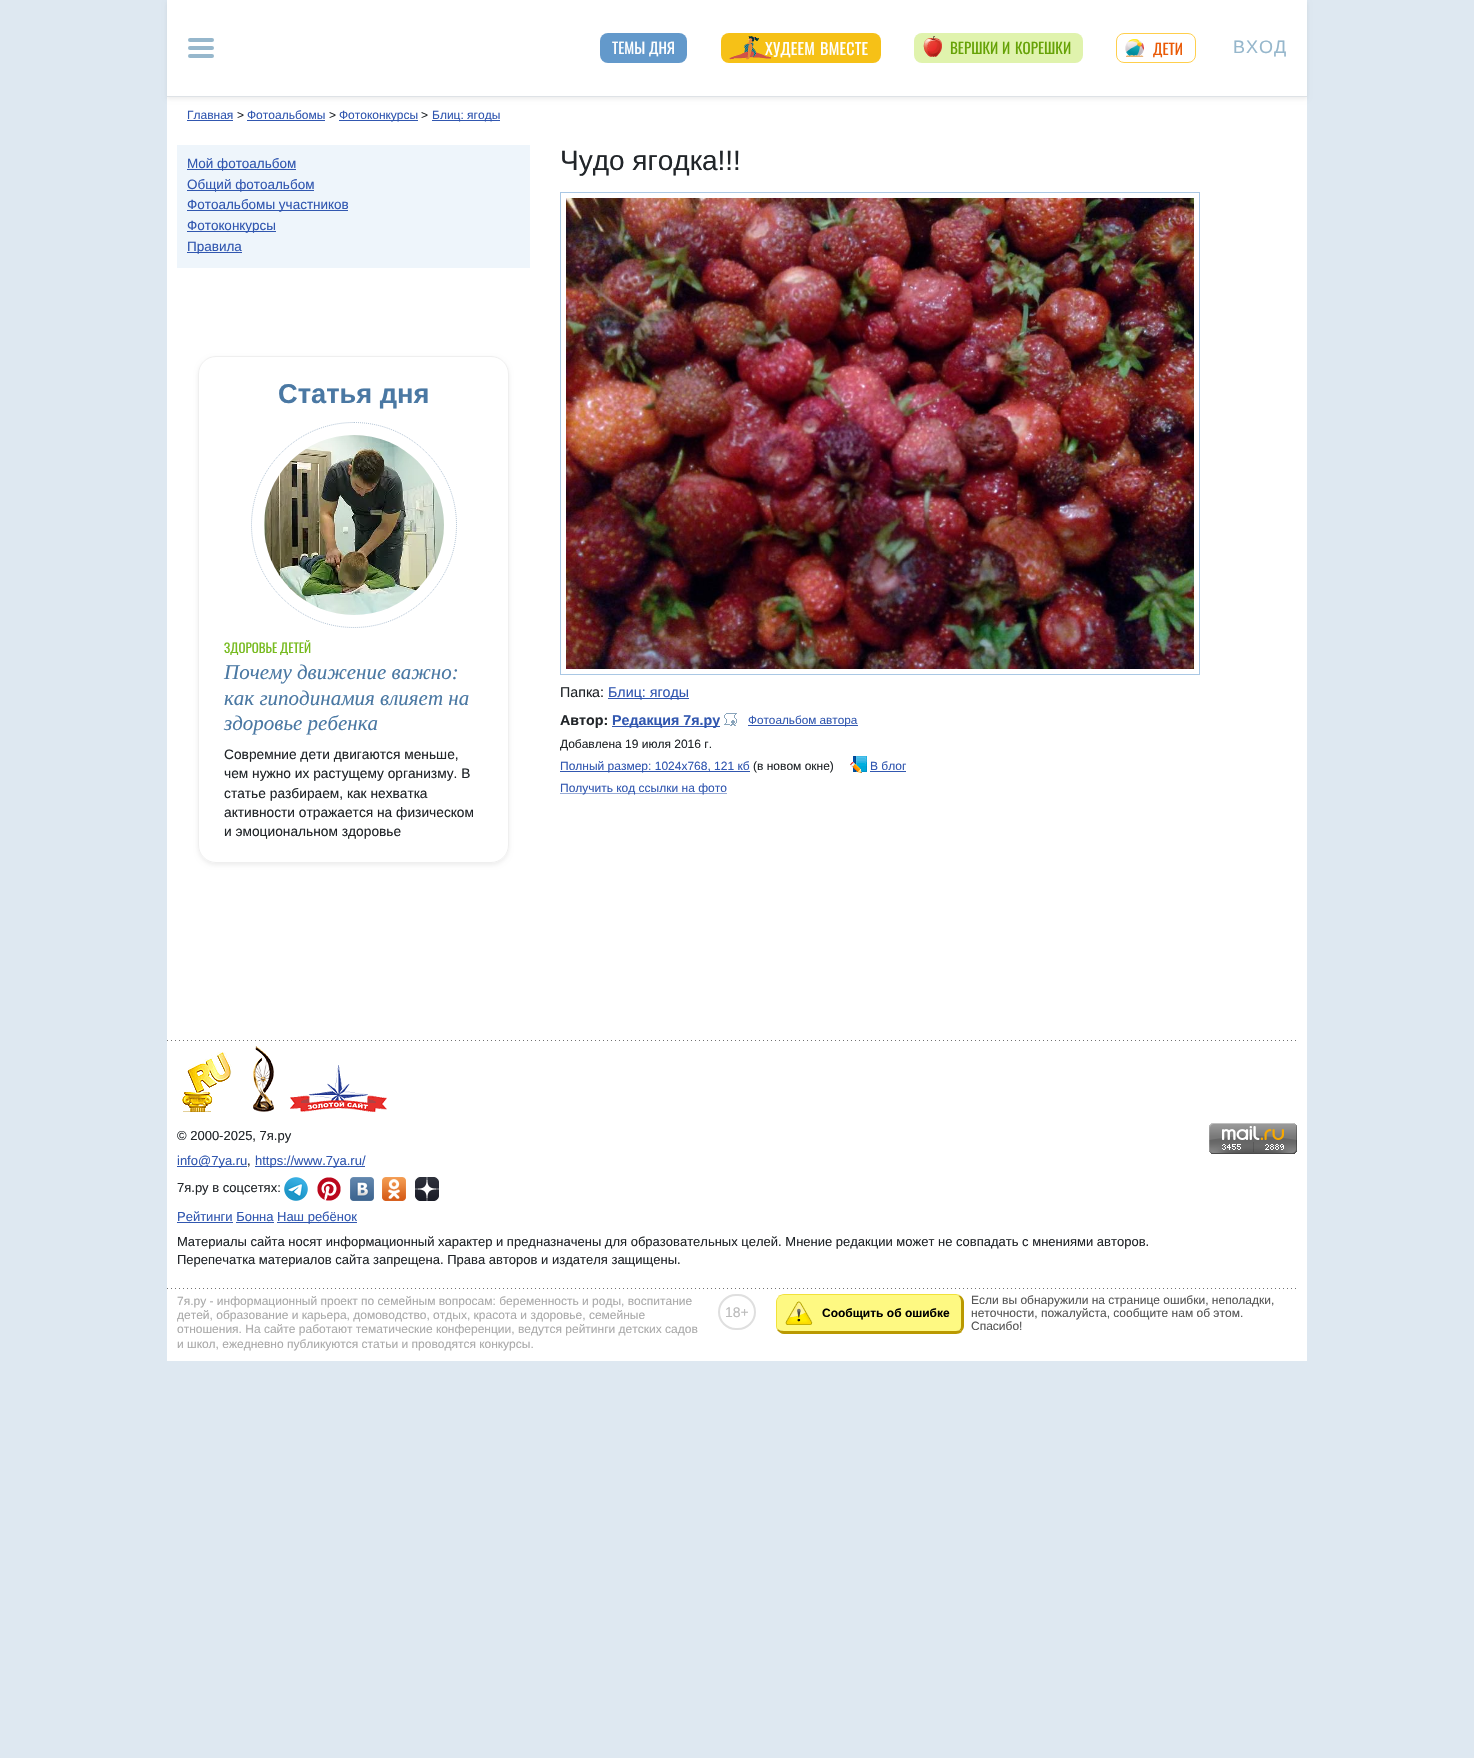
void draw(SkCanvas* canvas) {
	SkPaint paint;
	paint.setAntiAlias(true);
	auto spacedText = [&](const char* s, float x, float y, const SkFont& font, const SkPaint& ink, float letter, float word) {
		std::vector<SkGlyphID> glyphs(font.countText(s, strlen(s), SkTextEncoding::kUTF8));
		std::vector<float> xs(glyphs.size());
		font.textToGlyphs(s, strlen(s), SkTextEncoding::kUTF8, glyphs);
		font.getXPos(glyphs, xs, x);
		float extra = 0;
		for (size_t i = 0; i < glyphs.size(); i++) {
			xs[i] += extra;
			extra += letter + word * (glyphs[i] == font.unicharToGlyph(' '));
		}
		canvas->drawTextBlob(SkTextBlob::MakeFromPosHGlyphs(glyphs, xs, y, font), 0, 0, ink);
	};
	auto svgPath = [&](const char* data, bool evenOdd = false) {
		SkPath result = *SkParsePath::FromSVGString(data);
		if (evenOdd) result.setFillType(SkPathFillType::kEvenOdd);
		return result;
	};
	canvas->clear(0xffdee8f1);
	paint.setColor(0xffffffff);
	canvas->drawRect(SkRect::MakeXYWH(167, 97, 1140, 1264), paint);
	paint.setColor(0x12000000);
	paint.setMaskFilter(SkMaskFilter::MakeBlur(kNormal_SkBlurStyle, 2));
	canvas->drawRect(SkRect::MakeXYWH(167, 2, 1140, 97), paint);
	paint.setMaskFilter(nullptr);
	paint.setColor(0xffffffff);
	canvas->drawRect(SkRect::MakeXYWH(167, 0, 1140, 96), paint);
	paint.setColor(0xffdee2e6);
	canvas->drawRect(SkRect::MakeXYWH(167, 96, 1140, 1), paint);
	paint.setStroke(true);
	paint.setStrokeWidth(4);
	paint.setStrokeCap(SkPaint::kRound_Cap);
	paint.setColor(0xff96b7cc);
	canvas->drawPath(svgPath("M190 40H212M190 48H212M190 56H212"), paint);
	paint.setStroke(false);
	paint.setColor(0xff6399cb);
	canvas->drawRoundRect(SkRect::MakeXYWH(600, 33, 87, 30), 8, 8, paint);
	SkFont f1(fontMgr->matchFamilyStyle("Oswald", SkFontStyle::Normal()), 15);
	f1.setSubpixel(true);
	paint.setColor(0xffffffff);
	canvas->drawString("ТЕМЫ", 612, 54, f1, paint);
	canvas->drawString("ДНЯ", 649, 54, f1, paint);
	paint.setColor(0xfff6c117);
	canvas->drawRoundRect(SkRect::MakeXYWH(721, 33, 160, 30), 8, 8, paint);
	SkFont f2(fontMgr->matchFamilyStyle("Oswald", SkFontStyle::Normal()), 16);
	f2.setSubpixel(true);
	paint.setColor(0xffffffff);
	spacedText("ХУДЕЕМ", 765, 55, f2, paint, 0.25, 0);
	canvas->drawImageRect(SkImages::DeferredFromEncodedData(SkData::MakeFromFileName("img1.png")), SkRect::MakeXYWH(729, 36, 42, 24), SkSamplingOptions());
	spacedText("ВМЕСТЕ", 820, 55, f2, paint, 0.25, 0);
	paint.setColor(0xffe0f3ad);
	canvas->drawRoundRect(SkRect::MakeXYWH(914, 33, 169, 30), 8, 8, paint);
	canvas->drawImageRect(SkImages::DeferredFromEncodedData(SkData::MakeFromFileName("img2.png")), SkRect::MakeXYWH(923, 36, 19, 21), SkSamplingOptions());
	paint.setColor(0xff66a206);
	canvas->drawString("ВЕРШКИ", 950, 54, f1, paint);
	canvas->drawString("И", 1002, 54, f1, paint);
	canvas->drawString("КОРЕШКИ", 1015, 54, f1, paint);
	paint.setStroke(true);
	paint.setStrokeWidth(1);
	paint.setStrokeCap(SkPaint::kButt_Cap);
	paint.setColor(0xffffcf4c);
	canvas->drawRoundRect(SkRect::MakeXYWH(1116.5, 33.5, 79, 29), 7.5, 7.5, paint);
	canvas->drawImageRect(SkImages::DeferredFromEncodedData(SkData::MakeFromFileName("img3.png")), SkRect::MakeXYWH(1125, 39, 19, 18), SkSamplingOptions());
	paint.setStroke(false);
	paint.setColor(0xffea5a06);
	canvas->drawString("ДЕТИ", 1153, 55, f1, paint);
	SkFont f3(fontMgr->matchFamilyStyle("Liberation Sans", SkFontStyle::Normal()), 18);
	f3.setSubpixel(true);
	paint.setColor(0xff96b7cc);
	spacedText("ВХОД", 1233, 53, f3, paint, 1, 0);
	SkFont f4(fontMgr->matchFamilyStyle("Liberation Sans", SkFontStyle::Normal()), 12);
	f4.setSubpixel(true);
	paint.setColor(0xff3157b0);
	canvas->drawString("Главная", 187, 119, f4, paint);
	canvas->drawRect(SkRect::MakeXYWH(187, 120, 46, 1), paint);
	paint.setColor(0xff212529);
	canvas->drawString(">", 237, 119, f4, paint);
	paint.setColor(0xff3157b0);
	canvas->drawString("Фотоальбомы", 247, 119, f4, paint);
	canvas->drawRect(SkRect::MakeXYWH(247, 120, 78, 1), paint);
	paint.setColor(0xff212529);
	canvas->drawString(">", 329, 119, f4, paint);
	paint.setColor(0xff3157b0);
	canvas->drawRect(SkRect::MakeXYWH(339, 120, 79, 1), paint);
	canvas->drawString("Фотоконкурсы", 339, 119, f4, paint);
	paint.setColor(0xff212529);
	canvas->drawString(">", 421, 119, f4, paint);
	paint.setColor(0xff3157b0);
	canvas->drawRect(SkRect::MakeXYWH(432, 120, 68, 1), paint);
	canvas->drawString("Блиц: ягоды", 432, 119, f4, paint);
	paint.setColor(0xffeef5fb);
	canvas->drawRect(SkRect::MakeXYWH(177, 145, 353, 123), paint);
	paint.setColor(0xff3157b0);
	canvas->drawRect(SkRect::MakeXYWH(187, 169, 109, 1), paint);
	SkFont f5(fontMgr->matchFamilyStyle("Liberation Sans", SkFontStyle::Normal()), 13.5);
	f5.setSubpixel(true);
	canvas->drawString("Мой фотоальбом", 187, 168, f5, paint);
	canvas->drawRect(SkRect::MakeXYWH(187, 190, 127, 1), paint);
	canvas->drawString("Общий фотоальбом", 187, 189, f5, paint);
	canvas->drawRect(SkRect::MakeXYWH(187, 210, 161, 1), paint);
	canvas->drawString("Фотоальбомы участников", 187, 209, f5, paint);
	canvas->drawRect(SkRect::MakeXYWH(187, 231, 89, 1), paint);
	canvas->drawString("Фотоконкурсы", 187, 230, f5, paint);
	canvas->drawRect(SkRect::MakeXYWH(187, 252, 55, 1), paint);
	canvas->drawString("Правила", 187, 251, f5, paint);
	canvas->save();
	canvas->clipPath(svgPath("M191 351H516V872H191ZM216 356H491C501 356 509 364 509 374V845C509 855 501 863 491 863H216C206 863 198 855 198 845V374C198 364 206 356 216 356Z", true), true);
	paint.setColor(0x12000000);
	paint.setMaskFilter(SkMaskFilter::MakeBlur(kNormal_SkBlurStyle, 2));
	canvas->drawRoundRect(SkRect::MakeXYWH(198, 358, 311, 507), 18, 18, paint);
	paint.setMaskFilter(nullptr);
	canvas->restore();
	paint.setStroke(true);
	paint.setColor(0xffefefef);
	canvas->drawRoundRect(SkRect::MakeXYWH(198.5, 356.5, 310, 506), 17.5, 17.5, paint);
	SkFont f6(fontMgr->matchFamilyStyle("Liberation Sans", SkFontStyle::Bold()), 27.25);
	f6.setSubpixel(true);
	paint.setStroke(false);
	paint.setColor(0xff4a78a3);
	canvas->drawString("Статья дня", 278, 403, f6, paint);
	paint.setStroke(true);
	paint.setColor(0xffb4c5d6);
	paint.setPathEffect(SkDashPathEffect::Make({{1, 1}}, 0));
	canvas->drawPath(svgPath("M354 422.5C410.5 422.5 456.5 468.5 456.5 525C456.5 581.5 410.5 627.5 354 627.5C297.5 627.5 251.5 581.5 251.5 525C251.5 468.5 297.5 422.5 354 422.5Z"), paint);
	paint.setPathEffect(nullptr);
	canvas->drawImageRect(SkImages::DeferredFromEncodedData(SkData::MakeFromFileName("img4.png")), SkRect::MakeXYWH(264, 435, 180, 180), SkSamplingOptions());
	SkFont f7(fontMgr->matchFamilyStyle("Oswald", SkFontStyle::Normal()), 13);
	f7.setSubpixel(true);
	paint.setStroke(false);
	paint.setColor(0xff77bb1f);
	canvas->drawString("ЗДОРОВЬЕ", 224, 653, f7, paint);
	canvas->drawString("ДЕТЕЙ", 280, 653, f7, paint);
	SkFont f8(fontMgr->matchFamilyStyle("Liberation Serif", SkFontStyle::Italic()), 21);
	f8.setSubpixel(true);
	paint.setColor(0xff4a78a3);
	canvas->drawString("Почему движение важно:", 224, 679, f8, paint);
	canvas->drawString("как гиподинамия влияет на", 224, 705, f8, paint);
	canvas->drawString("здоровье ребенка", 224, 730, f8, paint);
	SkFont f9(fontMgr->matchFamilyStyle("Liberation Sans", SkFontStyle::Normal()), 13.75);
	f9.setSubpixel(true);
	paint.setColor(0xff212529);
	canvas->drawString("Совремние дети двигаются меньше,", 224, 759, f9, paint);
	canvas->drawString("чем нужно их растущему организму. В", 224, 778, f9, paint);
	canvas->drawString("статье разбираем, как нехватка", 224, 798, f9, paint);
	canvas->drawString("активности отражается на физическом", 224, 817, f9, paint);
	canvas->drawString("и эмоциональном здоровье", 224, 836, f9, paint);
	SkFont f10(fontMgr->matchFamilyStyle("Liberation Sans", SkFontStyle::Normal()), 28);
	f10.setSubpixel(true);
	canvas->drawString("Чудо ягодка!!!", 560, 170, f10, paint);
	paint.setStroke(true);
	paint.setColor(0xffa9c7e4);
	canvas->drawRect(SkRect::MakeXYWH(560.5, 192.5, 639, 482), paint);
	canvas->drawImageRect(SkImages::DeferredFromEncodedData(SkData::MakeFromFileName("img5.png")), SkRect::MakeXYWH(566, 198, 628, 471), SkSamplingOptions());
	SkFont f11(fontMgr->matchFamilyStyle("Liberation Sans", SkFontStyle::Normal()), 14.25);
	f11.setSubpixel(true);
	paint.setStroke(false);
	paint.setColor(0xff212529);
	canvas->drawString("Папка:", 560, 697, f11, paint);
	paint.setColor(0xff3157b0);
	canvas->drawRect(SkRect::MakeXYWH(608, 698, 81, 1), paint);
	canvas->drawString("Блиц: ягоды", 608, 697, f11, paint);
	SkFont f12(fontMgr->matchFamilyStyle("Liberation Sans", SkFontStyle::Bold()), 14.25);
	f12.setSubpixel(true);
	paint.setColor(0xff212529);
	canvas->drawString("Автор:", 560, 725, f12, paint);
	paint.setColor(0xff3157b0);
	canvas->drawRect(SkRect::MakeXYWH(612, 726, 108, 1), paint);
	canvas->drawString("Редакция 7я.ру", 612, 725, f12, paint);
	canvas->drawImageRect(SkImages::DeferredFromEncodedData(SkData::MakeFromFileName("img6.png")), SkRect::MakeXYWH(724, 713, 13, 13), SkSamplingOptions());
	canvas->drawRect(SkRect::MakeXYWH(748, 725, 110, 1), paint);
	SkFont f13(fontMgr->matchFamilyStyle("Liberation Sans", SkFontStyle::Normal()), 11.75);
	f13.setSubpixel(true);
	canvas->drawString("Фотоальбом автора", 748, 724, f13, paint);
	paint.setColor(0xff212529);
	canvas->drawString("Добавлена 19 июля 2016 г.", 560, 748, f4, paint);
	paint.setColor(0xff3157b0);
	canvas->drawRect(SkRect::MakeXYWH(560, 771, 190, 1), paint);
	canvas->drawString("Полный размер: 1024х768, 121 кб", 560, 770, f4, paint);
	paint.setColor(0xff212529);
	canvas->drawString("(в новом окне)", 753, 770, f4, paint);
	canvas->drawImageRect(SkImages::DeferredFromEncodedData(SkData::MakeFromFileName("img7.png")), SkRect::MakeXYWH(850, 756, 17, 17), SkSamplingOptions());
	paint.setColor(0xff3157b0);
	canvas->drawString("В блог", 870, 770, f4, paint);
	canvas->drawRect(SkRect::MakeXYWH(870, 771, 36, 1), paint);
	paint.setStroke(true);
	paint.setPathEffect(SkDashPathEffect::Make({{1, 1}}, 0));
	canvas->drawPath(svgPath("M560.5 793.5H727"), paint);
	paint.setPathEffect(nullptr);
	paint.setStroke(false);
	canvas->drawString("Получить код ссылки на фото", 560, 792, f4, paint);
	canvas->drawImageRect(SkImages::DeferredFromEncodedData(SkData::MakeFromFileName("img8.png")), SkRect::MakeXYWH(167, 1040, 1129, 1), SkSamplingOptions());
	canvas->drawImageRect(SkImages::DeferredFromEncodedData(SkData::MakeFromFileName("img9.png")), SkRect::MakeXYWH(182, 1052, 50, 60), SkSamplingOptions());
	canvas->drawImageRect(SkImages::DeferredFromEncodedData(SkData::MakeFromFileName("img10.png")), SkRect::MakeXYWH(253, 1046, 21, 66), SkSamplingOptions());
	canvas->drawImageRect(SkImages::DeferredFromEncodedData(SkData::MakeFromFileName("img11.png")), SkRect::MakeXYWH(290, 1065, 97, 47), SkSamplingOptions());
	SkFont f14(fontMgr->matchFamilyStyle("Liberation Sans", SkFontStyle::Normal()), 13);
	f14.setSubpixel(true);
	paint.setColor(0xff212529);
	canvas->drawString("© 2000-2025, 7я.ру", 177, 1140, f14, paint);
	paint.setColor(0xff3157b0);
	canvas->drawRect(SkRect::MakeXYWH(177, 1166, 70, 1), paint);
	canvas->drawString("info@7ya.ru", 177, 1165, f14, paint);
	paint.setColor(0xff212529);
	canvas->drawString(",", 247, 1165, f14, paint);
	paint.setColor(0xff3157b0);
	canvas->drawRect(SkRect::MakeXYWH(255, 1166, 110, 1), paint);
	canvas->drawString("https://www.7ya.ru/", 255, 1165, f14, paint);
	paint.setColor(0xff212529);
	canvas->drawString("7я.ру в соцсетях:", 177, 1192, f14, paint);
	canvas->drawImageRect(SkImages::DeferredFromEncodedData(SkData::MakeFromFileName("img12.png")), SkRect::MakeXYWH(284, 1177, 24, 24), SkSamplingOptions());
	canvas->drawImageRect(SkImages::DeferredFromEncodedData(SkData::MakeFromFileName("img13.png")), SkRect::MakeXYWH(317, 1177, 24, 24), SkSamplingOptions());
	canvas->drawImageRect(SkImages::DeferredFromEncodedData(SkData::MakeFromFileName("img14.png")), SkRect::MakeXYWH(350, 1177, 24, 24), SkSamplingOptions());
	canvas->drawImageRect(SkImages::DeferredFromEncodedData(SkData::MakeFromFileName("img15.png")), SkRect::MakeXYWH(382, 1177, 24, 24), SkSamplingOptions());
	canvas->drawImageRect(SkImages::DeferredFromEncodedData(SkData::MakeFromFileName("img16.png")), SkRect::MakeXYWH(415, 1177, 24, 24), SkSamplingOptions());
	paint.setColor(0xff3157b0);
	canvas->drawString("Рейтинги Бонна", 177, 1221, f14, paint);
	canvas->drawRect(SkRect::MakeXYWH(177, 1222, 56, 1), paint);
	canvas->drawRect(SkRect::MakeXYWH(277, 1222, 80, 1), paint);
	canvas->drawString("Наш ребёнок", 277, 1221, f14, paint);
	canvas->drawRect(SkRect::MakeXYWH(236, 1222, 38, 1), paint);
	paint.setColor(0xff212529);
	canvas->drawString("Материалы сайта носят информационный характер и предназначены для образовательных целей. Мнение редакции может не совпадать с мнениями авторов.", 177, 1246, f14, paint);
	canvas->drawString("Перепечатка материалов сайта запрещена. Права авторов и издателя защищены.", 177, 1264, f14, paint);
	canvas->drawImageRect(SkImages::DeferredFromEncodedData(SkData::MakeFromFileName("img17.png")), SkRect::MakeXYWH(1209, 1123, 88, 31), SkSamplingOptions());
	canvas->drawImageRect(SkImages::DeferredFromEncodedData(SkData::MakeFromFileName("img8.png")), SkRect::MakeXYWH(167, 1288, 1129, 1), SkSamplingOptions());
	paint.setColor(0xffaaaaaa);
	canvas->drawString("7я.ру - информационный проект по семейным вопросам: беременность и роды, воспитание", 177, 1305, f4, paint);
	canvas->drawString("детей, образование и карьера, домоводство, отдых, красота и здоровье, семейные", 177, 1319, f4, paint);
	canvas->drawString("отношения. На сайте работают тематические конференции, ведутся рейтинги детских садов", 177, 1333, f4, paint);
	canvas->drawString("и школ, ежедневно публикуются статьи и проводятся конкурсы.", 177, 1348, f4, paint);
	paint.setStroke(true);
	paint.setStrokeWidth(2);
	paint.setColor(0xffdfdfdf);
	canvas->drawRoundRect(SkRect::MakeXYWH(719, 1295, 36, 34), 17, 17, paint);
	SkFont f15(fontMgr->matchFamilyStyle("Liberation Sans", SkFontStyle::Normal()), 14);
	f15.setSubpixel(true);
	paint.setStroke(false);
	paint.setColor(0xffbbbbbb);
	canvas->drawString("18+", 725, 1317, f15, paint);
	paint.setColor(0xfffef982);
	canvas->drawPath(svgPath("M784 1295H956C959 1295 961 1298 961 1302V1326C961 1329 959 1331 956 1331H784C780 1331 777 1329 777 1326V1302C777 1298 780 1295 784 1295Z"), paint);
	canvas->drawImageRect(SkImages::DeferredFromEncodedData(SkData::MakeFromFileName("img18.png")), SkRect::MakeXYWH(785, 1301, 28, 24), SkSamplingOptions());
	paint.setColor(0xfff1e23b);
	canvas->drawPath(svgPath("M784 1294C782 1294 780 1295 778 1296L779 1297C780 1296 782 1295 784 1295H956L959 1296L960 1295L956 1294Z"), paint);
	paint.setColor(0xffba9900);
	canvas->drawPath(svgPath("M964 1326V1302C964 1299.5 962.5 1297 960 1295.5L958.5 1296C960 1297 961 1299.5 961 1302V1326C961 1327.5 960.5 1329 959.5 1329.5L961.5 1331.5C963 1330 964 1328 964 1326Z"), paint);
	canvas->drawPath(svgPath("M784 1334H956C958 1334 960 1333 962 1332L960 1330C959 1330 958 1331 956 1331H784C781 1331 779 1330 778 1329L777 1330C779 1332 781 1334 784 1334Z"), paint);
	paint.setColor(0xfff1e23b);
	canvas->drawPath(svgPath("M776 1302V1326C776 1327.5 776.5 1329 777.5 1330L778 1328.5C777.5 1328 777 1327 777 1326V1302C777 1300 778 1298 779 1297L778.5 1296.5C777 1298 776 1300 776 1302Z"), paint);
	SkFont f16(fontMgr->matchFamilyStyle("Liberation Sans", SkFontStyle::Bold()), 12);
	f16.setSubpixel(true);
	paint.setColor(0xff000000);
	canvas->drawString("Сообщить об ошибке", 822, 1317, f16, paint);
	paint.setColor(0xff555555);
	canvas->drawString("Если вы обнаружили на странице ошибки, неполадки,", 971, 1304, f4, paint);
	canvas->drawString("неточности, пожалуйста, сообщите нам об этом.", 971, 1317, f4, paint);
	canvas->drawString("Спасибо!", 971, 1330, f4, paint);
}
